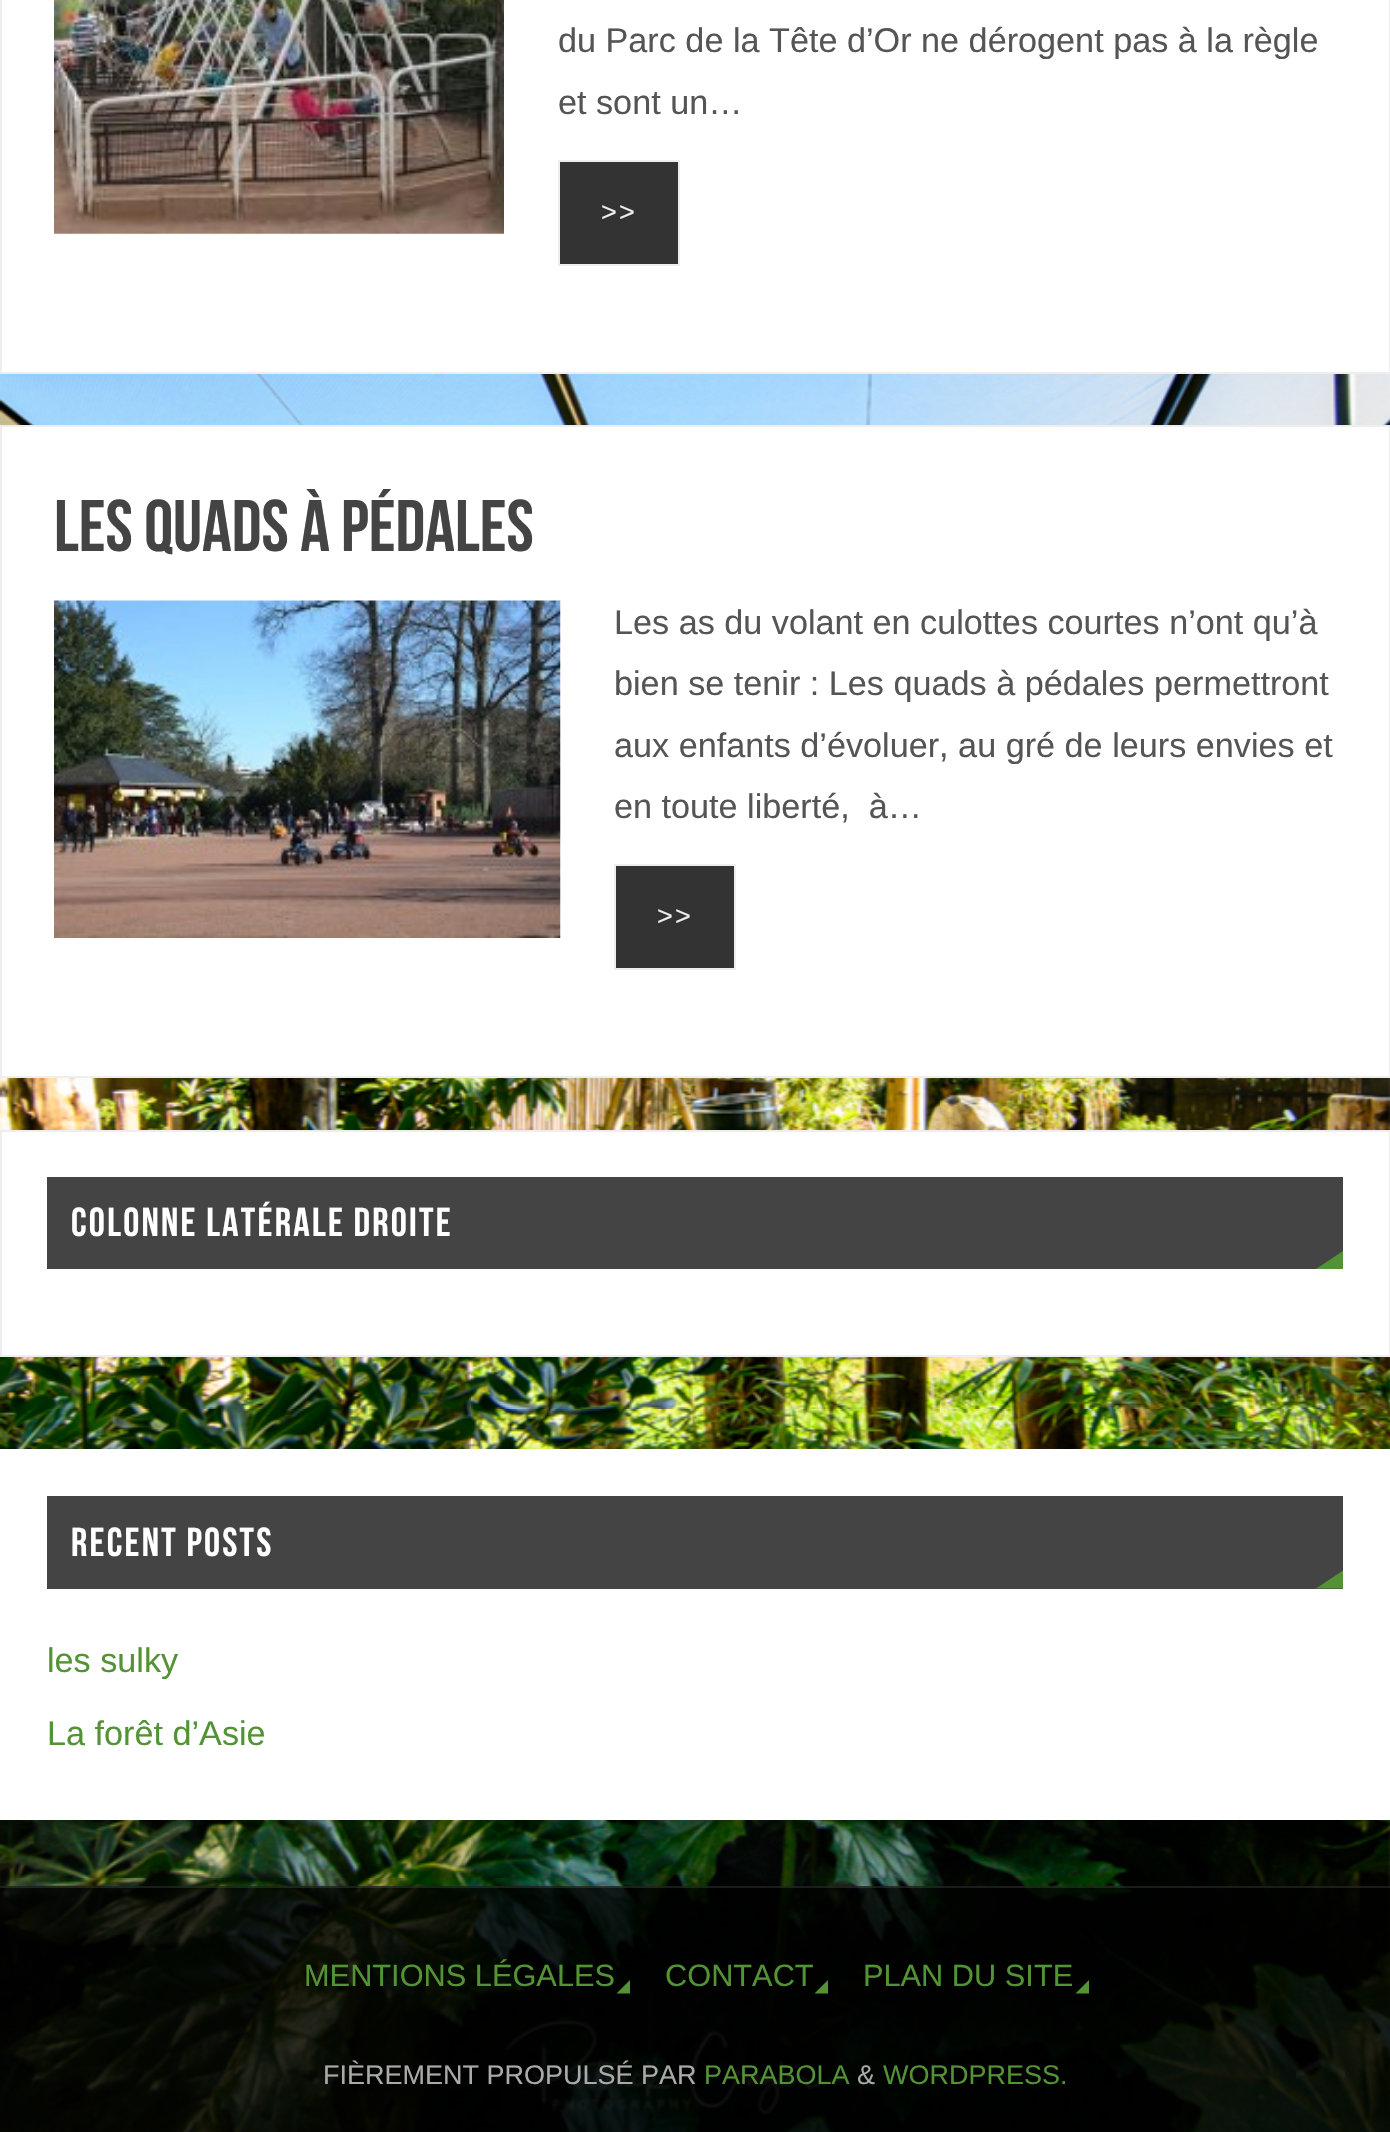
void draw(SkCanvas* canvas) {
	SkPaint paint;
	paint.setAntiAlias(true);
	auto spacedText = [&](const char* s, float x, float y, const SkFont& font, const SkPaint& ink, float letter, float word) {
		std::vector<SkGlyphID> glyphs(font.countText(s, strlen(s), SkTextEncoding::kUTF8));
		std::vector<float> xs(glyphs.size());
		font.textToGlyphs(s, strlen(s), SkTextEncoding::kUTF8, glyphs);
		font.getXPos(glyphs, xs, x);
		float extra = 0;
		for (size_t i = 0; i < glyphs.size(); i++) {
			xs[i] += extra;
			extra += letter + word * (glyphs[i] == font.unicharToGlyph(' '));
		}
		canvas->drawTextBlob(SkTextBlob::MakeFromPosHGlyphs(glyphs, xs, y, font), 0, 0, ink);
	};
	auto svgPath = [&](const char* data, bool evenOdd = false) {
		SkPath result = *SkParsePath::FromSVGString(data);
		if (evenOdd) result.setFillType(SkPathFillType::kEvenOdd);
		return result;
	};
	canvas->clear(0xffffffff);
	canvas->drawImageRect(SkImages::DeferredFromEncodedData(SkData::MakeFromFileName("img1.png")), SkRect::MakeXYWH(0, 374, 1390, 1758), SkSamplingOptions());
	paint.setStroke(true);
	paint.setStrokeWidth(2);
	paint.setColor(0xffeeeeee);
	canvas->drawRect(SkRect::MakeXYWH(1, -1, 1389, 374), paint);
	canvas->drawImageRect(SkImages::DeferredFromEncodedData(SkData::MakeFromFileName("img2.png")), SkRect::MakeXYWH(54, 0, 450, 234), SkSamplingOptions());
	SkFont f1(fontMgr->matchFamilyStyle("Liberation Sans", SkFontStyle::Normal()), 34.2);
	f1.setSubpixel(true);
	paint.setStroke(false);
	paint.setColor(0xff555555);
	canvas->drawString("du Parc de la Tête d’Or ne dérogent pas à la règle", 558, 52, f1, paint);
	canvas->drawString("et sont un…", 558, 114, f1, paint);
	paint.setColor(0xff333333);
	canvas->drawRect(SkRect::MakeXYWH(559, 161, 120, 104), paint);
	paint.setStroke(true);
	paint.setColor(0xffeeeeee);
	canvas->drawRect(SkRect::MakeXYWH(559, 161, 120, 104), paint);
	SkFont f2(fontMgr->matchFamilyStyle("Liberation Sans", SkFontStyle::Normal()), 27);
	f2.setSubpixel(true);
	paint.setStroke(false);
	spacedText(">>", 601, 221, f2, paint, 2.25, 0);
	paint.setColor(0xffffffff);
	canvas->drawRect(SkRect::MakeXYWH(1, 426, 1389, 651), paint);
	paint.setStroke(true);
	paint.setColor(0xffeeeeee);
	canvas->drawRect(SkRect::MakeXYWH(1, 426, 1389, 651), paint);
	SkFont f3(fontMgr->matchFamilyStyle("Bebas Neue", SkFontStyle::Normal()), 73);
	f3.setSubpixel(true);
	paint.setStroke(false);
	paint.setColor(0xff444444);
	canvas->drawString("Les quads à pédales", 54, 551, f3, paint);
	canvas->drawImageRect(SkImages::DeferredFromEncodedData(SkData::MakeFromFileName("img3.png")), SkRect::MakeXYWH(54, 600, 507, 338), SkSamplingOptions());
	paint.setColor(0xff555555);
	canvas->drawString("Les as du volant en culottes courtes n’ont qu’à", 614, 634, f1, paint);
	canvas->drawString("bien se tenir : Les quads à pédales permettront", 614, 695, f1, paint);
	canvas->drawString("aux enfants d’évoluer, au gré de leurs envies et", 614, 757, f1, paint);
	canvas->drawString("en toute liberté,  à…", 614, 818, f1, paint);
	paint.setColor(0xff333333);
	canvas->drawRect(SkRect::MakeXYWH(615, 865, 120, 104), paint);
	paint.setStroke(true);
	paint.setColor(0xffeeeeee);
	canvas->drawRect(SkRect::MakeXYWH(615, 865, 120, 104), paint);
	paint.setStroke(false);
	spacedText(">>", 657, 925, f2, paint, 2.25, 0);
	paint.setColor(0xffffffff);
	canvas->drawRect(SkRect::MakeXYWH(1, 1131, 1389, 225), paint);
	paint.setStroke(true);
	paint.setColor(0xffeeeeee);
	canvas->drawRect(SkRect::MakeXYWH(1, 1131, 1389, 225), paint);
	paint.setStroke(false);
	paint.setColor(0xff444444);
	canvas->drawRect(SkRect::MakeXYWH(47, 1177, 1296, 92), paint);
	SkFont f4(fontMgr->matchFamilyStyle("Bebas Neue", SkFontStyle::Normal()), 40.5);
	f4.setSubpixel(true);
	paint.setColor(0xffffffff);
	spacedText("COLONNE LATÉRALE DROITE", 71, 1236, f4, paint, 2.25, 0);
	paint.setColor(0xff539335);
	canvas->drawPath(svgPath("M1343 1269H1316L1343 1251Z"), paint);
	paint.setColor(0xffffffff);
	canvas->drawRect(SkRect::MakeXYWH(0, 1449, 1390, 371), paint);
	paint.setColor(0xff444444);
	canvas->drawRect(SkRect::MakeXYWH(47, 1496, 1296, 93), paint);
	paint.setColor(0xffffffff);
	spacedText("RECENT POSTS", 71, 1556, f4, paint, 2.25, 0);
	paint.setColor(0xff539335);
	canvas->drawPath(svgPath("M1343 1588.5H1316L1343 1570.5Z"), paint);
	canvas->drawString("les sulky", 47, 1672, f1, paint);
	canvas->drawString("La forêt d’Asie", 47, 1745, f1, paint);
	paint.setColor(0xcc000000);
	canvas->drawRect(SkRect::MakeXYWH(0, 1886, 1390, 246), paint);
	paint.setColor(0x1affffff);
	canvas->drawRect(SkRect::MakeXYWH(0, 1886, 1390, 2), paint);
	SkFont f5(fontMgr->matchFamilyStyle("Liberation Sans", SkFontStyle::Normal()), 30.75);
	f5.setSubpixel(true);
	paint.setColor(0xff539335);
	canvas->drawString("MENTIONS LÉGALES", 304, 1986, f5, paint);
	canvas->drawPath(svgPath("M630 1993.5H616.5L630 1980Z"), paint);
	canvas->drawString("CONTACT", 665, 1986, f5, paint);
	canvas->drawPath(svgPath("M828 1993.5H814.5L828 1980Z"), paint);
	canvas->drawString("PLAN DU SITE", 863, 1986, f5, paint);
	canvas->drawPath(svgPath("M1089 1993.5H1075.5L1089 1980Z"), paint);
	paint.setColor(0xffaaaaaa);
	canvas->drawString("FIÈREMENT PROPULSÉ PAR", 323, 2084, f2, paint);
	paint.setColor(0xff539335);
	canvas->drawString("PARABOLA", 704, 2084, f2, paint);
	paint.setColor(0xffaaaaaa);
	canvas->drawString("&", 857, 2084, f2, paint);
	paint.setColor(0xff539335);
	canvas->drawString("WORDPRESS.", 883, 2084, f2, paint);
	canvas->drawImageRect(SkImages::DeferredFromEncodedData(SkData::MakeFromFileName("img4.png")), SkRect::MakeXYWH(1296, 2059, 49, 20), SkSamplingOptions());
}
